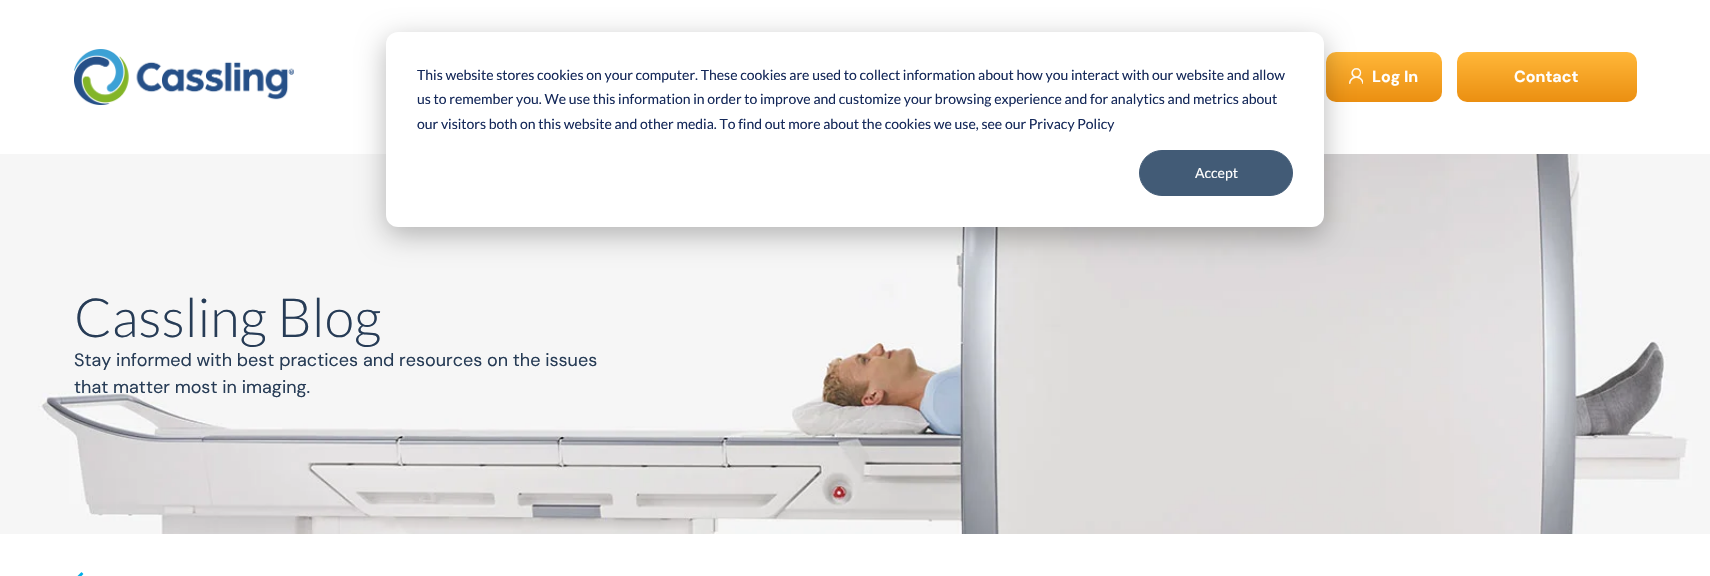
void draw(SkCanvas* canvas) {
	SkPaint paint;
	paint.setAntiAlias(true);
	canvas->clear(0xffffffff);
	{
		const SkColor colors[] = {0xffffb739, 0xffeb8f11};
		const float stops[] = {0, 1};
		const SkPoint ends[] = {{1384, 52}, {1384, 102}};
		paint.setShader(SkGradientShader::MakeLinear(ends, colors, stops, 2, SkTileMode::kClamp));
		paint.setAlpha(255);
	}
	canvas->drawRoundRect(SkRect::MakeXYWH(1326, 52, 116, 50), 10, 10, paint);
	canvas->drawImageRect(SkImages::DeferredFromEncodedData(SkData::MakeFromFileName("img2.png")), SkRect::MakeXYWH(1349, 68, 14, 16), SkSamplingOptions());
	canvas->drawImageRect(SkImages::DeferredFromEncodedData(SkData::MakeFromFileName("img3.png")), SkRect::MakeXYWH(0, 154, 1710, 380), SkSamplingOptions());
	paint.setShader(nullptr);
	paint.setColor(0x47000000);
	paint.setMaskFilter(SkMaskFilter::MakeBlur(kNormal_SkBlurStyle, 14));
	canvas->drawRoundRect(SkRect::MakeXYWH(386, 40, 938, 195), 12, 12, paint);
	paint.setMaskFilter(nullptr);
	paint.setColor(0xffffffff);
	canvas->drawRoundRect(SkRect::MakeXYWH(386, 32, 938, 195), 12, 12, paint);
	SkFont f1(fontMgr->matchFamilyStyle("Lato", SkFontStyle::Normal()), 14);
	f1.setSubpixel(true);
	paint.setColor(0xff15295a);
	canvas->drawString("This website stores cookies on your computer. These cookies are used to collect information about how you interact with our website and allow", 417, 80, f1, paint);
	canvas->drawString("us to remember you. We use this information in order to improve and customize your browsing experience and for analytics and metrics about", 417, 104, f1, paint);
	canvas->drawString("our visitors both on this website and other media. To find out more about the cookies we use, see our Privacy Policy", 417, 129, f1, paint);
	paint.setColor(0xff425b76);
	canvas->drawRoundRect(SkRect::MakeXYWH(1139.5, 150.5, 153, 45), 22.5, 22.5, paint);
	paint.setStroke(true);
	paint.setStrokeWidth(1);
	canvas->drawRoundRect(SkRect::MakeXYWH(1139.5, 150.5, 153, 45), 22.5, 22.5, paint);
	paint.setStroke(false);
	paint.setColor(0xffffffff);
	canvas->drawString("Accept", 1195, 178, f1, paint);
	canvas->drawImageRect(SkImages::DeferredFromEncodedData(SkData::MakeFromFileName("img1.png")), SkRect::MakeXYWH(74, 49, 220, 56), SkSamplingOptions());
	SkFont f2(fontMgr->matchFamilyStyle("DM Sans", SkFontStyle::Bold()), 16);
	f2.setSubpixel(true);
	canvas->drawString("Log In", 1372, 82, f2, paint);
	{
		const SkColor colors[] = {0xffffb739, 0xffeb8f11};
		const float stops[] = {0, 1};
		const SkPoint ends[] = {{1547, 52}, {1547, 102}};
		paint.setShader(SkGradientShader::MakeLinear(ends, colors, stops, 2, SkTileMode::kClamp));
		paint.setAlpha(255);
	}
	canvas->drawRoundRect(SkRect::MakeXYWH(1457, 52, 180, 50), 10, 10, paint);
	paint.setShader(nullptr);
	paint.setColor(0xffffffff);
	canvas->drawString("Contact", 1514, 82, f2, paint);
	SkFont f3(fontMgr->matchFamilyStyle("Lato", SkFontStyle(300, SkFontStyle::kNormal_Width, SkFontStyle::kUpright_Slant)), 54);
	f3.setSubpixel(true);
	paint.setColor(0xff273c56);
	canvas->drawString("Cassling Blog", 74, 337, f3, paint);
	SkFont f4(fontMgr->matchFamilyStyle("DM Sans", SkFontStyle::Normal()), 18);
	f4.setSubpixel(true);
	canvas->drawString("Stay informed with best practices and resources on the issues", 74, 366, f4, paint);
	canvas->drawString("that matter most in imaging.", 74, 393, f4, paint);
	canvas->drawImageRect(SkImages::DeferredFromEncodedData(SkData::MakeFromFileName("img4.png")), SkRect::MakeXYWH(77, 572, 7, 4), SkSamplingOptions());
}
